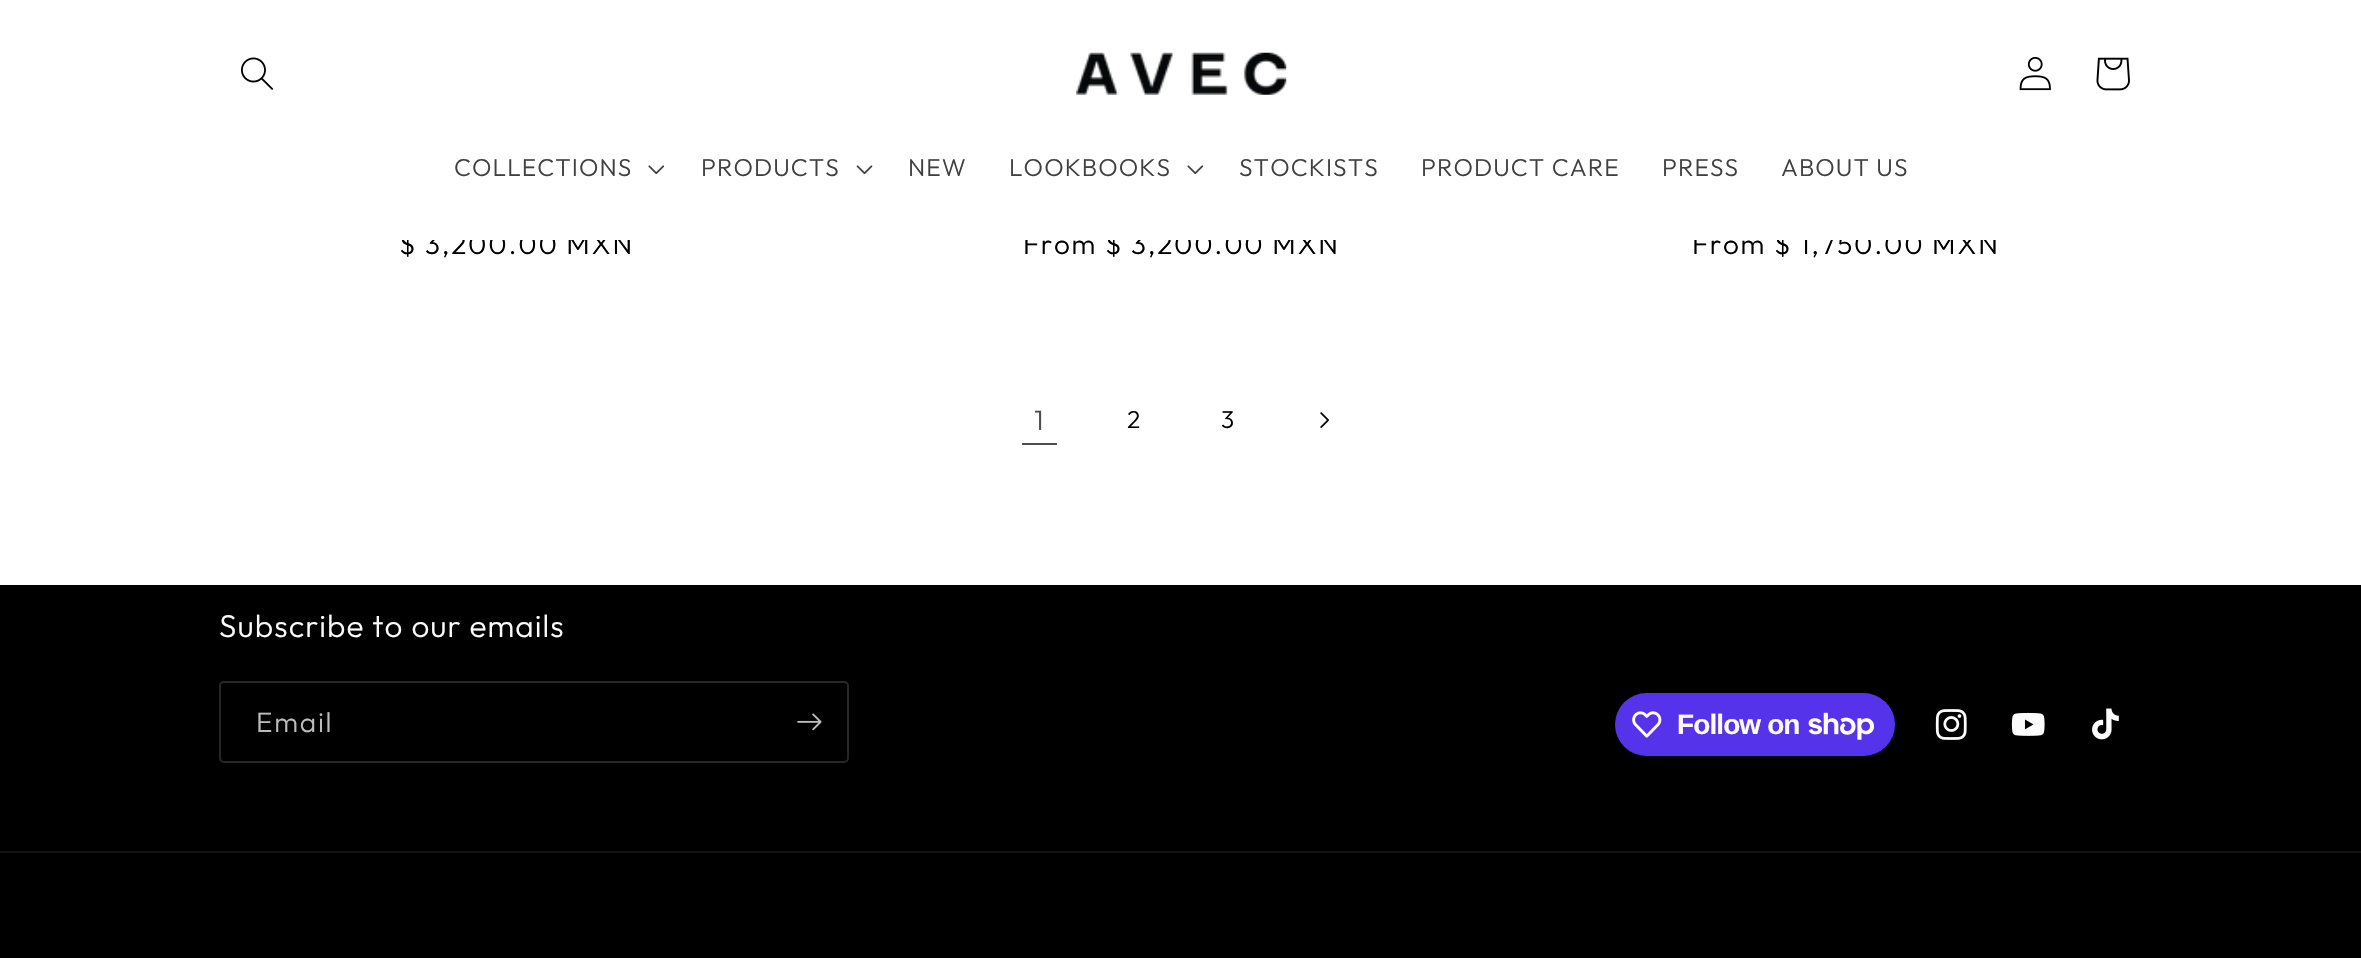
void draw(SkCanvas* canvas) {
	SkPaint paint;
	paint.setAntiAlias(true);
	auto spacedText = [&](const char* s, float x, float y, const SkFont& font, const SkPaint& ink, float letter, float word) {
		std::vector<SkGlyphID> glyphs(font.countText(s, strlen(s), SkTextEncoding::kUTF8));
		std::vector<float> xs(glyphs.size());
		font.textToGlyphs(s, strlen(s), SkTextEncoding::kUTF8, glyphs);
		font.getXPos(glyphs, xs, x);
		float extra = 0;
		for (size_t i = 0; i < glyphs.size(); i++) {
			xs[i] += extra;
			extra += letter + word * (glyphs[i] == font.unicharToGlyph(' '));
		}
		canvas->drawTextBlob(SkTextBlob::MakeFromPosHGlyphs(glyphs, xs, y, font), 0, 0, ink);
	};
	canvas->clear(0xffffffff);
	SkFont f1(fontMgr->matchFamilyStyle("Outfit", SkFontStyle(300, SkFontStyle::kNormal_Width, SkFontStyle::kUpright_Slant)), 28);
	f1.setSubpixel(true);
	paint.setColor(0xff000000);
	spacedText("$ 3,200.00 MXN", 399, 254, f1, paint, 1.75, 0);
	spacedText("From $ 3,200.00 MXN", 1023, 254, f1, paint, 1.75, 0);
	spacedText("From $ 1,750.00 MXN", 1692, 254, f1, paint, 1.75, 0);
	paint.setColor(0xffffffff);
	canvas->drawRect(SkRect::MakeXYWH(401, 231, 1595, 9), paint);
	canvas->drawImageRect(SkImages::DeferredFromEncodedData(SkData::MakeFromFileName("img1.png")), SkRect::MakeXYWH(241, 57, 32, 33), SkSamplingOptions());
	canvas->drawImageRect(SkImages::DeferredFromEncodedData(SkData::MakeFromFileName("img2.png")), SkRect::MakeXYWH(1076, 52, 211, 43), SkSamplingOptions());
	canvas->drawImageRect(SkImages::DeferredFromEncodedData(SkData::MakeFromFileName("img3.png")), SkRect::MakeXYWH(2019, 56, 32, 35), SkSamplingOptions());
	canvas->drawImageRect(SkImages::DeferredFromEncodedData(SkData::MakeFromFileName("img4.png")), SkRect::MakeXYWH(2096, 57, 34, 34), SkSamplingOptions());
	SkFont f2(fontMgr->matchFamilyStyle("Outfit", SkFontStyle(300, SkFontStyle::kNormal_Width, SkFontStyle::kUpright_Slant)), 24.5);
	f2.setSubpixel(true);
	paint.setColor(0xff404040);
	spacedText("COLLECTIONS", 454, 176, f2, paint, 1.05, 0);
	canvas->drawImageRect(SkImages::DeferredFromEncodedData(SkData::MakeFromFileName("img5.png")), SkRect::MakeXYWH(648, 165, 17, 10), SkSamplingOptions());
	spacedText("PRODUCTS", 701, 176, f2, paint, 1.05, 0);
	canvas->drawImageRect(SkImages::DeferredFromEncodedData(SkData::MakeFromFileName("img6.png")), SkRect::MakeXYWH(856, 165, 17, 10), SkSamplingOptions());
	spacedText("NEW", 908, 176, f2, paint, 1.05, 0);
	spacedText("LOOKBOOKS", 1009, 176, f2, paint, 1.05, 0);
	canvas->drawImageRect(SkImages::DeferredFromEncodedData(SkData::MakeFromFileName("img5.png")), SkRect::MakeXYWH(1187, 165, 17, 10), SkSamplingOptions());
	spacedText("STOCKISTS", 1239, 176, f2, paint, 1.05, 0);
	spacedText("PRODUCT CARE", 1421, 176, f2, paint, 1.05, 0);
	spacedText("PRESS", 1662, 176, f2, paint, 1.05, 0);
	spacedText("ABOUT US", 1781, 176, f2, paint, 1.05, 0);
	paint.setColor(0xff4d4d4d);
	spacedText("1", 1034, 430, f1, paint, 1.05, 0);
	canvas->drawRect(SkRect::MakeXYWH(1022, 443, 35, 2), paint);
	paint.setColor(0xff000000);
	spacedText("2", 1127, 428, f2, paint, 1.05, 0);
	spacedText("3", 1221, 428, f2, paint, 1.05, 0);
	canvas->drawImageRect(SkImages::DeferredFromEncodedData(SkData::MakeFromFileName("img7.png")), SkRect::MakeXYWH(1320, 412, 9, 16), SkSamplingOptions());
	canvas->drawRect(SkRect::MakeXYWH(0, 585, 2361, 373), paint);
	SkFont f3(fontMgr->matchFamilyStyle("Outfit", SkFontStyle(300, SkFontStyle::kNormal_Width, SkFontStyle::kUpright_Slant)), 31.5);
	f3.setSubpixel(true);
	paint.setColor(0xfffcfcfc);
	spacedText("Subscribe to our emails", 219, 637, f3, paint, 1.05, 0);
	paint.setStroke(true);
	paint.setStrokeWidth(2);
	paint.setColor(0xff262626);
	canvas->drawRoundRect(SkRect::MakeXYWH(220, 682, 628, 80), 4, 4, paint);
	paint.setStroke(false);
	paint.setColor(0xffbdbdbd);
	spacedText("Email", 256, 732, f1, paint, 1.75, 0);
	canvas->drawImageRect(SkImages::DeferredFromEncodedData(SkData::MakeFromFileName("img8.png")), SkRect::MakeXYWH(797, 713, 25, 18), SkSamplingOptions());
	paint.setColor(0xff5433eb);
	canvas->drawRoundRect(SkRect::MakeXYWH(1615, 693, 280, 63), 31.5, 31.5, paint);
	canvas->drawImageRect(SkImages::DeferredFromEncodedData(SkData::MakeFromFileName("img9.png")), SkRect::MakeXYWH(1632, 711, 30, 27), SkSamplingOptions());
	SkFont f4(fontMgr->matchFamilyStyle("Liberation Sans", SkFontStyle::Bold()), 28);
	f4.setSubpixel(true);
	paint.setColor(0xfffcfcfc);
	spacedText("Follow on", 1677, 734, f4, paint, -0.9, 0);
	canvas->drawImageRect(SkImages::DeferredFromEncodedData(SkData::MakeFromFileName("img10.png")), SkRect::MakeXYWH(1808, 712, 66, 28), SkSamplingOptions());
	canvas->drawImageRect(SkImages::DeferredFromEncodedData(SkData::MakeFromFileName("img11.png")), SkRect::MakeXYWH(1935, 709, 32, 31), SkSamplingOptions());
	canvas->drawImageRect(SkImages::DeferredFromEncodedData(SkData::MakeFromFileName("img12.png")), SkRect::MakeXYWH(2011, 712, 34, 24), SkSamplingOptions());
	canvas->drawImageRect(SkImages::DeferredFromEncodedData(SkData::MakeFromFileName("img13.png")), SkRect::MakeXYWH(2092, 708, 27, 32), SkSamplingOptions());
	paint.setColor(0xff141414);
	canvas->drawRect(SkRect::MakeXYWH(0, 851, 2361, 2), paint);
}
